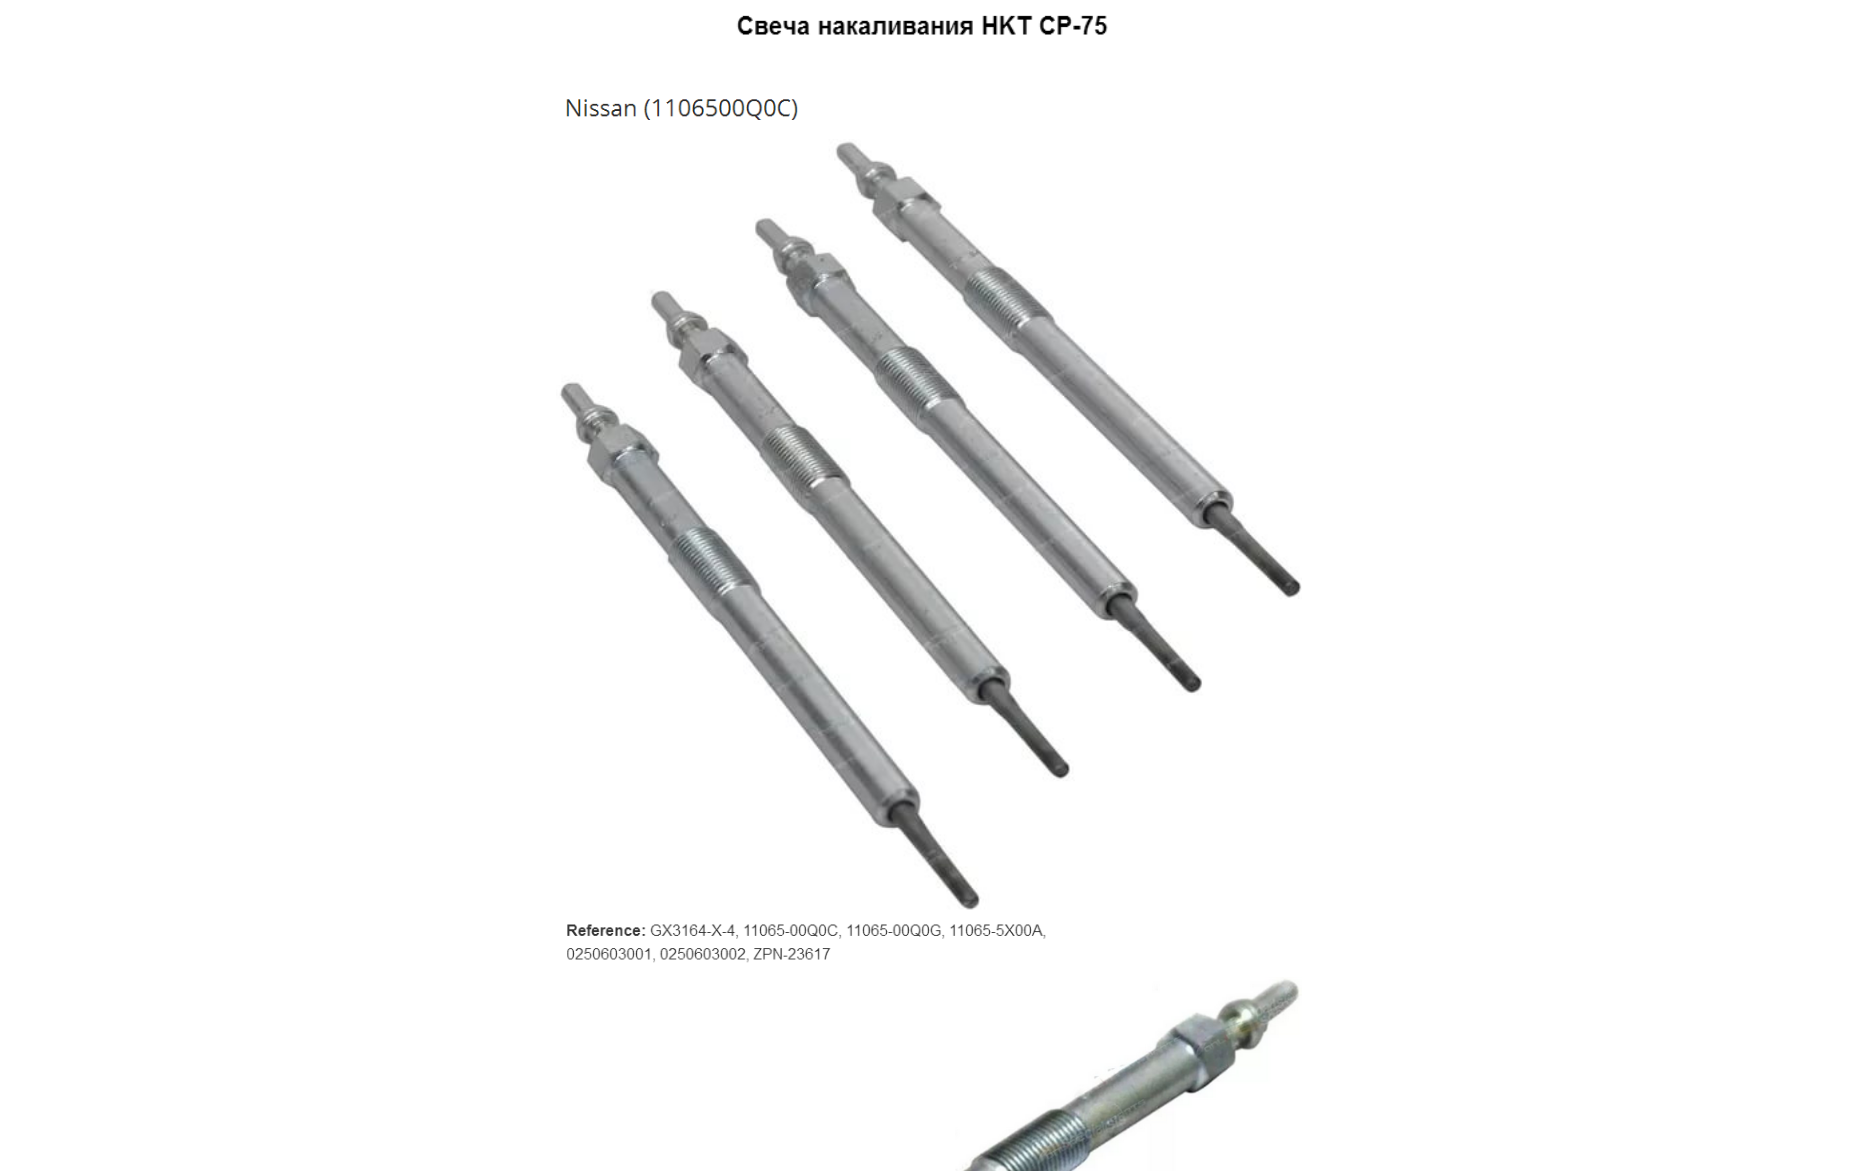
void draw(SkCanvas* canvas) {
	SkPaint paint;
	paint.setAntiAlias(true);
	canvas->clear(0xffffffff);
	canvas->drawImageRect(SkImages::DeferredFromEncodedData(SkData::MakeFromFileName("img1.png")), SkRect::MakeXYWH(736, 15, 372, 20), SkSamplingOptions());
	canvas->drawImageRect(SkImages::DeferredFromEncodedData(SkData::MakeFromFileName("img2.png")), SkRect::MakeXYWH(566, 99, 232, 21), SkSamplingOptions());
	canvas->drawImageRect(SkImages::DeferredFromEncodedData(SkData::MakeFromFileName("img3.png")), SkRect::MakeXYWH(556, 139, 746, 771), SkSamplingOptions());
	canvas->drawImageRect(SkImages::DeferredFromEncodedData(SkData::MakeFromFileName("img4.png")), SkRect::MakeXYWH(567, 924, 479, 39), SkSamplingOptions());
	canvas->drawImageRect(SkImages::DeferredFromEncodedData(SkData::MakeFromFileName("img5.png")), SkRect::MakeXYWH(955, 977, 347, 194), SkSamplingOptions());
}
